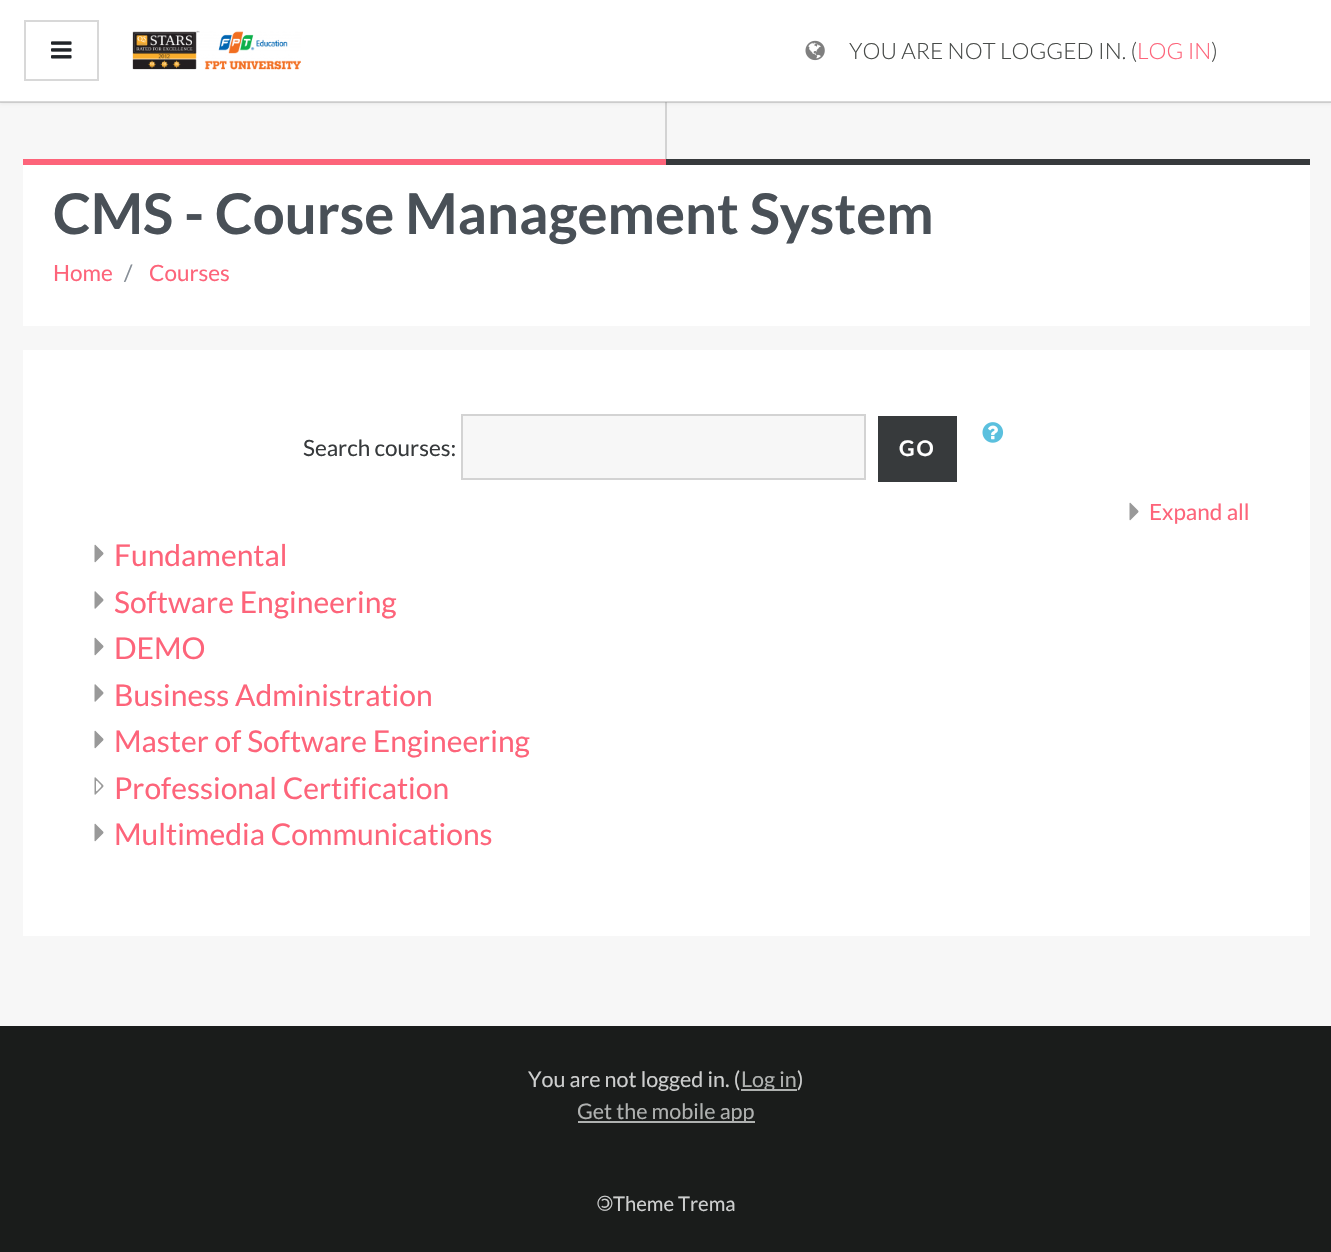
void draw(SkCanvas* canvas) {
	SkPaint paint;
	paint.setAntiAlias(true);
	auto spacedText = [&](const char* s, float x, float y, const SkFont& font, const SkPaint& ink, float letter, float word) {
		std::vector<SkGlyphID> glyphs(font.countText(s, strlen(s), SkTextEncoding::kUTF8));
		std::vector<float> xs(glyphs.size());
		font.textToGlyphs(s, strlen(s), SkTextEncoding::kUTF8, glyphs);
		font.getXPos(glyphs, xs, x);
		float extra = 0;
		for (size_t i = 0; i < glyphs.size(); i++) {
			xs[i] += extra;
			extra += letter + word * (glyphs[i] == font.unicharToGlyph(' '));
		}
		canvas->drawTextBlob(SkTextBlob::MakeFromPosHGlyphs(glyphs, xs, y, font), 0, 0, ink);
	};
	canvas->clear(0xfff7f7f7);
	paint.setColor(0xffd3d3d3);
	canvas->drawRect(SkRect::MakeXYWH(665, 102, 2, 57), paint);
	paint.setColor(0x0d000000);
	paint.setMaskFilter(SkMaskFilter::MakeBlur(kNormal_SkBlurStyle, 1.5));
	canvas->drawRect(SkRect::MakeXYWH(0, 2, 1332, 102), paint);
	paint.setMaskFilter(nullptr);
	paint.setColor(0xffffffff);
	canvas->drawRect(SkRect::MakeXYWH(0, 0, 1331, 102), paint);
	paint.setColor(0x59909090);
	canvas->drawRect(SkRect::MakeXYWH(0, 101, 1331, 2), paint);
	paint.setStroke(true);
	paint.setStrokeWidth(2);
	paint.setColor(0xffd8d8d8);
	canvas->drawRect(SkRect::MakeXYWH(25, 21, 73, 59), paint);
	canvas->drawImageRect(SkImages::DeferredFromEncodedData(SkData::MakeFromFileName("img1.png")), SkRect::MakeXYWH(51, 41, 21, 18), SkSamplingOptions());
	canvas->drawImageRect(SkImages::DeferredFromEncodedData(SkData::MakeFromFileName("img2.png")), SkRect::MakeXYWH(132, 30, 169, 40), SkSamplingOptions());
	canvas->drawImageRect(SkImages::DeferredFromEncodedData(SkData::MakeFromFileName("img3.png")), SkRect::MakeXYWH(805, 40, 20, 21), SkSamplingOptions());
	SkFont f1(fontMgr->matchFamilyStyle("Lato", SkFontStyle(300, SkFontStyle::kNormal_Width, SkFontStyle::kUpright_Slant)), 22.5);
	f1.setSubpixel(true);
	paint.setStroke(false);
	paint.setColor(0xff484b49);
	canvas->drawString("YOU ARE NOT LOGGED IN. (", 849, 59, f1, paint);
	paint.setColor(0xfffd647a);
	canvas->drawString("LOG IN", 1137, 59, f1, paint);
	paint.setColor(0xff484b49);
	canvas->drawString(")", 1211, 59, f1, paint);
	paint.setColor(0xffffffff);
	canvas->drawRect(SkRect::MakeXYWH(23, 165, 1287, 161), paint);
	paint.setColor(0xfffd647a);
	canvas->drawRect(SkRect::MakeXYWH(23, 159, 643, 6), paint);
	paint.setColor(0xff373a3c);
	canvas->drawRect(SkRect::MakeXYWH(666, 159, 644, 6), paint);
	SkFont f2(fontMgr->matchFamilyStyle("Lato", SkFontStyle::Bold()), 56.25);
	f2.setSubpixel(true);
	paint.setColor(0xff495057);
	canvas->drawString("CMS - Course Management System", 53, 234, f2, paint);
	SkFont f3(fontMgr->matchFamilyStyle("Lato", SkFontStyle::Normal()), 22.5);
	f3.setSubpixel(true);
	paint.setColor(0xfffd647a);
	canvas->drawString("Home", 53, 281, f3, paint);
	paint.setColor(0xff868e96);
	canvas->drawString("/", 124, 281, f3, paint);
	paint.setColor(0xfffd647a);
	canvas->drawString("Courses", 149, 281, f3, paint);
	paint.setColor(0xffffffff);
	canvas->drawRect(SkRect::MakeXYWH(23, 350, 1287, 586), paint);
	canvas->drawImageRect(SkImages::DeferredFromEncodedData(SkData::MakeFromFileName("img4.png")), SkRect::MakeXYWH(982, 422, 22, 21), SkSamplingOptions());
	paint.setColor(0xff373a3c);
	canvas->drawString("Search courses:", 303, 456, f3, paint);
	paint.setColor(0xfff7f7f7);
	canvas->drawRect(SkRect::MakeXYWH(462, 415, 403, 64), paint);
	paint.setStroke(true);
	paint.setColor(0xffd3d3d3);
	canvas->drawRect(SkRect::MakeXYWH(462, 415, 403, 64), paint);
	paint.setStroke(false);
	paint.setColor(0xff373a3c);
	canvas->drawRect(SkRect::MakeXYWH(878, 416, 79, 66), paint);
	SkFont f4(fontMgr->matchFamilyStyle("Lato", SkFontStyle::Bold()), 21.5);
	f4.setSubpixel(true);
	paint.setColor(0xffffffff);
	spacedText("GO", 899, 456, f4, paint, 2, 0);
	canvas->drawImageRect(SkImages::DeferredFromEncodedData(SkData::MakeFromFileName("img5.png")), SkRect::MakeXYWH(1129, 502, 10, 19), SkSamplingOptions());
	paint.setColor(0xfffd647a);
	canvas->drawString("Expand all", 1149, 520, f3, paint);
	canvas->drawImageRect(SkImages::DeferredFromEncodedData(SkData::MakeFromFileName("img6.png")), SkRect::MakeXYWH(94, 544, 10, 19), SkSamplingOptions());
	SkFont f5(fontMgr->matchFamilyStyle("Lato", SkFontStyle::Normal()), 30);
	f5.setSubpixel(true);
	canvas->drawString("Fundamental", 114, 566, f5, paint);
	canvas->drawImageRect(SkImages::DeferredFromEncodedData(SkData::MakeFromFileName("img7.png")), SkRect::MakeXYWH(94, 591, 10, 18), SkSamplingOptions());
	canvas->drawString("Software Engineering", 114, 613, f5, paint);
	canvas->drawImageRect(SkImages::DeferredFromEncodedData(SkData::MakeFromFileName("img6.png")), SkRect::MakeXYWH(94, 637, 10, 19), SkSamplingOptions());
	canvas->drawString("DEMO", 114, 659, f5, paint);
	canvas->drawImageRect(SkImages::DeferredFromEncodedData(SkData::MakeFromFileName("img7.png")), SkRect::MakeXYWH(94, 684, 10, 18), SkSamplingOptions());
	canvas->drawString("Business Administration", 114, 706, f5, paint);
	canvas->drawImageRect(SkImages::DeferredFromEncodedData(SkData::MakeFromFileName("img6.png")), SkRect::MakeXYWH(94, 730, 10, 19), SkSamplingOptions());
	canvas->drawString("Master of Software Engineering", 114, 752, f5, paint);
	canvas->drawImageRect(SkImages::DeferredFromEncodedData(SkData::MakeFromFileName("img8.png")), SkRect::MakeXYWH(94, 777, 10, 18), SkSamplingOptions());
	canvas->drawString("Professional Certification", 114, 799, f5, paint);
	canvas->drawImageRect(SkImages::DeferredFromEncodedData(SkData::MakeFromFileName("img6.png")), SkRect::MakeXYWH(94, 823, 10, 19), SkSamplingOptions());
	canvas->drawString("Multimedia Communications", 114, 845, f5, paint);
	paint.setColor(0xff1a1c1b);
	canvas->drawRect(SkRect::MakeXYWH(0, 1026, 1331, 226), paint);
	SkFont f6(fontMgr->matchFamilyStyle("Lato", SkFontStyle::Normal()), 21.5);
	f6.setSubpixel(true);
	paint.setColor(0xffcdcece);
	canvas->drawString("You are not logged in. (", 528, 1087, f6, paint);
	paint.setColor(0xffafb1b0);
	canvas->drawRect(SkRect::MakeXYWH(741, 1089, 56, 2), paint);
	canvas->drawString("Log in", 741, 1087, f6, paint);
	paint.setColor(0xffcdcece);
	canvas->drawString(")", 797, 1087, f6, paint);
	paint.setColor(0xffafb1b0);
	canvas->drawRect(SkRect::MakeXYWH(578, 1121, 177, 2), paint);
	canvas->drawString("Get the mobile app", 577, 1119, f6, paint);
	SkFont f7(fontMgr->matchFamilyStyle("Lato", SkFontStyle::Normal()), 20.25);
	f7.setSubpixel(true);
	paint.setColor(0xffcdcece);
	canvas->save();
	canvas->rotate(180, 613, 1196);
	canvas->drawString("©", 613, 1196, f7, paint);
	canvas->restore();
	canvas->drawString("Theme Trema", 613, 1211, f7, paint);
}
